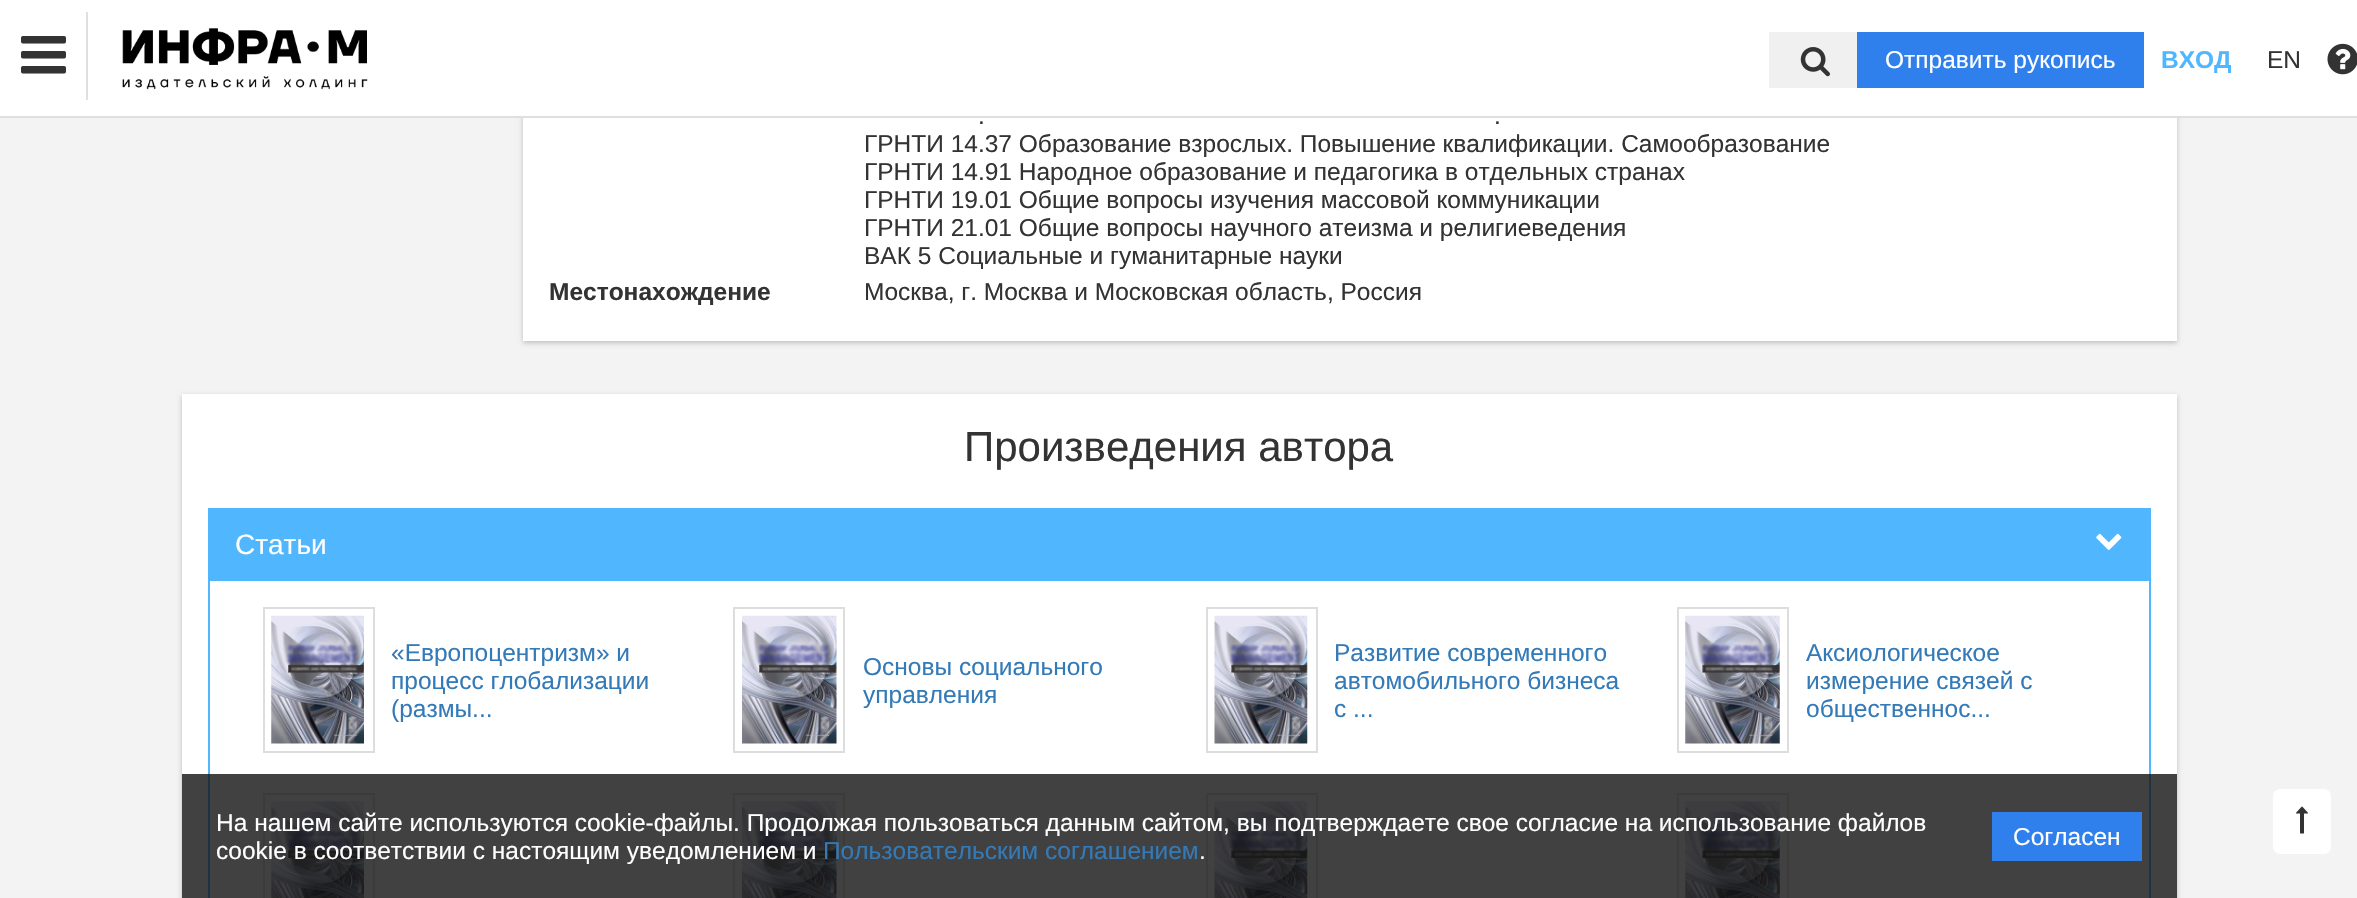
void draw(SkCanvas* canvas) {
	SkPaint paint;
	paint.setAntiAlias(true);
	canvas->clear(0xfff4f3f3);
	paint.setColor(0xffbfbfbf);
	paint.setMaskFilter(SkMaskFilter::MakeBlur(kNormal_SkBlurStyle, 2.5));
	canvas->drawRect(SkRect::MakeXYWH(523, -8, 1654, 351), paint);
	paint.setMaskFilter(nullptr);
	paint.setColor(0xffffffff);
	canvas->drawRect(SkRect::MakeXYWH(0, 0, 2357, 116), paint);
	paint.setColor(0xffdfdfdf);
	canvas->drawRect(SkRect::MakeXYWH(0, 116, 2357, 2), paint);
	canvas->drawRect(SkRect::MakeXYWH(86, 12, 2, 88), paint);
	canvas->drawImageRect(SkImages::DeferredFromEncodedData(SkData::MakeFromFileName("img1.png")), SkRect::MakeXYWH(21, 36, 45, 38), SkSamplingOptions());
	canvas->drawImageRect(SkImages::DeferredFromEncodedData(SkData::MakeFromFileName("img2.png")), SkRect::MakeXYWH(122, 28, 246, 62), SkSamplingOptions());
	paint.setColor(0xfff0f0f0);
	canvas->drawRect(SkRect::MakeXYWH(1769, 32, 88, 56), paint);
	canvas->drawImageRect(SkImages::DeferredFromEncodedData(SkData::MakeFromFileName("img3.png")), SkRect::MakeXYWH(1800, 47, 30, 30), SkSamplingOptions());
	paint.setColor(0xff2f80ed);
	canvas->drawRect(SkRect::MakeXYWH(1857, 32, 287, 56), paint);
	SkFont f1(fontMgr->matchFamilyStyle("Liberation Sans", SkFontStyle::Normal()), 24.5);
	f1.setSubpixel(true);
	paint.setColor(0xffffffff);
	canvas->drawString("Отправить рукопись", 1885, 68, f1, paint);
	SkFont f2(fontMgr->matchFamilyStyle("Liberation Sans", SkFontStyle::Bold()), 24.5);
	f2.setSubpixel(true);
	paint.setColor(0xff50b7ff);
	canvas->drawString("ВХОД", 2161, 68, f2, paint);
	paint.setColor(0xff333333);
	canvas->drawString("EN", 2267, 68, f1, paint);
	canvas->drawImageRect(SkImages::DeferredFromEncodedData(SkData::MakeFromFileName("img4.png")), SkRect::MakeXYWH(2327, 43, 30, 32), SkSamplingOptions());
	paint.setColor(0xffffffff);
	canvas->drawRect(SkRect::MakeXYWH(523, 118, 1654, 223), paint);
	paint.setColor(0xff333333);
	canvas->drawString(".", 978, 124, f1, paint);
	canvas->drawString(".", 1494, 124, f1, paint);
	canvas->drawString("ГРНТИ 14.37 Образование взрослых. Повышение квалификации. Самообразование", 864, 152, f1, paint);
	canvas->drawString("ГРНТИ 14.91 Народное образование и педагогика в отдельных странах", 864, 180, f1, paint);
	canvas->drawString("ГРНТИ 19.01 Общие вопросы изучения массовой коммуникации", 864, 208, f1, paint);
	canvas->drawString("ГРНТИ 21.01 Общие вопросы научного атеизма и религиеведения", 864, 236, f1, paint);
	canvas->drawString("ВАК 5 Социальные и гуманитарные науки", 864, 264, f1, paint);
	canvas->drawString("Местонахождение", 549, 300, f2, paint);
	canvas->drawString("Москва, г. Москва и Московская область, Россия", 864, 300, f1, paint);
	paint.setColor(0xffbfbfbf);
	paint.setMaskFilter(SkMaskFilter::MakeBlur(kNormal_SkBlurStyle, 2.5));
	canvas->drawRect(SkRect::MakeXYWH(182, 396, 1995, 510), paint);
	paint.setMaskFilter(nullptr);
	paint.setColor(0xffffffff);
	canvas->drawRect(SkRect::MakeXYWH(182, 394, 1995, 504), paint);
	SkFont f3(fontMgr->matchFamilyStyle("Liberation Sans", SkFontStyle::Normal()), 42);
	f3.setSubpixel(true);
	paint.setColor(0xff333333);
	canvas->drawString("Произведения автора", 964, 461, f3, paint);
	paint.setStroke(true);
	paint.setStrokeWidth(2);
	paint.setColor(0xff50b7ff);
	canvas->drawRect(SkRect::MakeXYWH(209, 509, 1941, 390), paint);
	paint.setStroke(false);
	canvas->drawRect(SkRect::MakeXYWH(210, 510, 1939, 71), paint);
	SkFont f4(fontMgr->matchFamilyStyle("Liberation Sans", SkFontStyle::Normal()), 28);
	f4.setSubpixel(true);
	paint.setColor(0xffffffff);
	canvas->drawString("Статьи", 235, 554, f4, paint);
	canvas->drawImageRect(SkImages::DeferredFromEncodedData(SkData::MakeFromFileName("img5.png")), SkRect::MakeXYWH(2096, 533, 26, 17), SkSamplingOptions());
	paint.setStroke(true);
	paint.setColor(0xffdddddd);
	canvas->drawRect(SkRect::MakeXYWH(264, 608, 110, 144), paint);
	canvas->drawImageRect(SkImages::DeferredFromEncodedData(SkData::MakeFromFileName("img6.png")), SkRect::MakeXYWH(271, 615, 93, 129), SkSamplingOptions());
	paint.setStroke(false);
	paint.setColor(0xff337ab7);
	canvas->drawString("«Европоцентризм» и", 391, 661, f1, paint);
	canvas->drawString("процесс глобализации", 391, 689, f1, paint);
	canvas->drawString("(размы...", 391, 717, f1, paint);
	paint.setStroke(true);
	paint.setColor(0xffdddddd);
	canvas->drawRect(SkRect::MakeXYWH(734, 608, 110, 144), paint);
	canvas->drawImageRect(SkImages::DeferredFromEncodedData(SkData::MakeFromFileName("img7.png")), SkRect::MakeXYWH(742, 615, 95, 129), SkSamplingOptions());
	paint.setStroke(false);
	paint.setColor(0xff337ab7);
	canvas->drawString("Основы социального", 863, 675, f1, paint);
	canvas->drawString("управления", 863, 703, f1, paint);
	paint.setStroke(true);
	paint.setColor(0xffdddddd);
	canvas->drawRect(SkRect::MakeXYWH(1207, 608, 110, 144), paint);
	canvas->drawImageRect(SkImages::DeferredFromEncodedData(SkData::MakeFromFileName("img8.png")), SkRect::MakeXYWH(1214, 615, 94, 129), SkSamplingOptions());
	paint.setStroke(false);
	paint.setColor(0xff337ab7);
	canvas->drawString("Развитие современного", 1334, 661, f1, paint);
	canvas->drawString("автомобильного бизнеса", 1334, 689, f1, paint);
	canvas->drawString("с ...", 1334, 717, f1, paint);
	paint.setStroke(true);
	paint.setColor(0xffdddddd);
	canvas->drawRect(SkRect::MakeXYWH(1678, 608, 110, 144), paint);
	canvas->drawImageRect(SkImages::DeferredFromEncodedData(SkData::MakeFromFileName("img9.png")), SkRect::MakeXYWH(1685, 615, 95, 129), SkSamplingOptions());
	paint.setStroke(false);
	paint.setColor(0xff337ab7);
	canvas->drawString("Аксиологическое", 1806, 661, f1, paint);
	canvas->drawString("измерение связей с", 1806, 689, f1, paint);
	canvas->drawString("общественнос...", 1806, 717, f1, paint);
	paint.setStroke(true);
	paint.setColor(0xffdddddd);
	canvas->drawRect(SkRect::MakeXYWH(264, 794, 110, 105), paint);
	canvas->drawImageRect(SkImages::DeferredFromEncodedData(SkData::MakeFromFileName("img10.png")), SkRect::MakeXYWH(271, 801, 93, 97), SkSamplingOptions());
	canvas->drawRect(SkRect::MakeXYWH(734, 794, 110, 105), paint);
	canvas->drawImageRect(SkImages::DeferredFromEncodedData(SkData::MakeFromFileName("img11.png")), SkRect::MakeXYWH(742, 801, 95, 97), SkSamplingOptions());
	canvas->drawRect(SkRect::MakeXYWH(1207, 794, 110, 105), paint);
	canvas->drawImageRect(SkImages::DeferredFromEncodedData(SkData::MakeFromFileName("img12.png")), SkRect::MakeXYWH(1214, 801, 94, 97), SkSamplingOptions());
	canvas->drawRect(SkRect::MakeXYWH(1678, 794, 110, 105), paint);
	canvas->drawImageRect(SkImages::DeferredFromEncodedData(SkData::MakeFromFileName("img13.png")), SkRect::MakeXYWH(1685, 801, 95, 97), SkSamplingOptions());
	paint.setStroke(false);
	paint.setColor(0xffffffff);
	canvas->drawRoundRect(SkRect::MakeXYWH(2273, 789, 58, 65), 7, 7, paint);
	canvas->drawImageRect(SkImages::DeferredFromEncodedData(SkData::MakeFromFileName("img14.png")), SkRect::MakeXYWH(2296, 806, 12, 28), SkSamplingOptions());
	paint.setColor(0xcc121212);
	canvas->drawRect(SkRect::MakeXYWH(182, 774, 1995, 124), paint);
	paint.setColor(0xffffffff);
	canvas->drawString("На нашем сайте используются cookie-файлы. Продолжая пользоваться данным сайтом, вы подтверждаете свое согласие на использование файлов", 216, 831, f1, paint);
	canvas->drawString("cookie в соответствии с настоящим уведомлением и", 216, 859, f1, paint);
	paint.setColor(0xff337ab7);
	canvas->drawString("Пользовательским соглашением", 823, 859, f1, paint);
	paint.setColor(0xffffffff);
	canvas->drawString(".", 1199, 859, f1, paint);
	paint.setColor(0xff2f80ed);
	canvas->drawRect(SkRect::MakeXYWH(1992, 812, 150, 49), paint);
	paint.setColor(0xffffffff);
	canvas->drawString("Согласен", 2013, 845, f1, paint);
}
